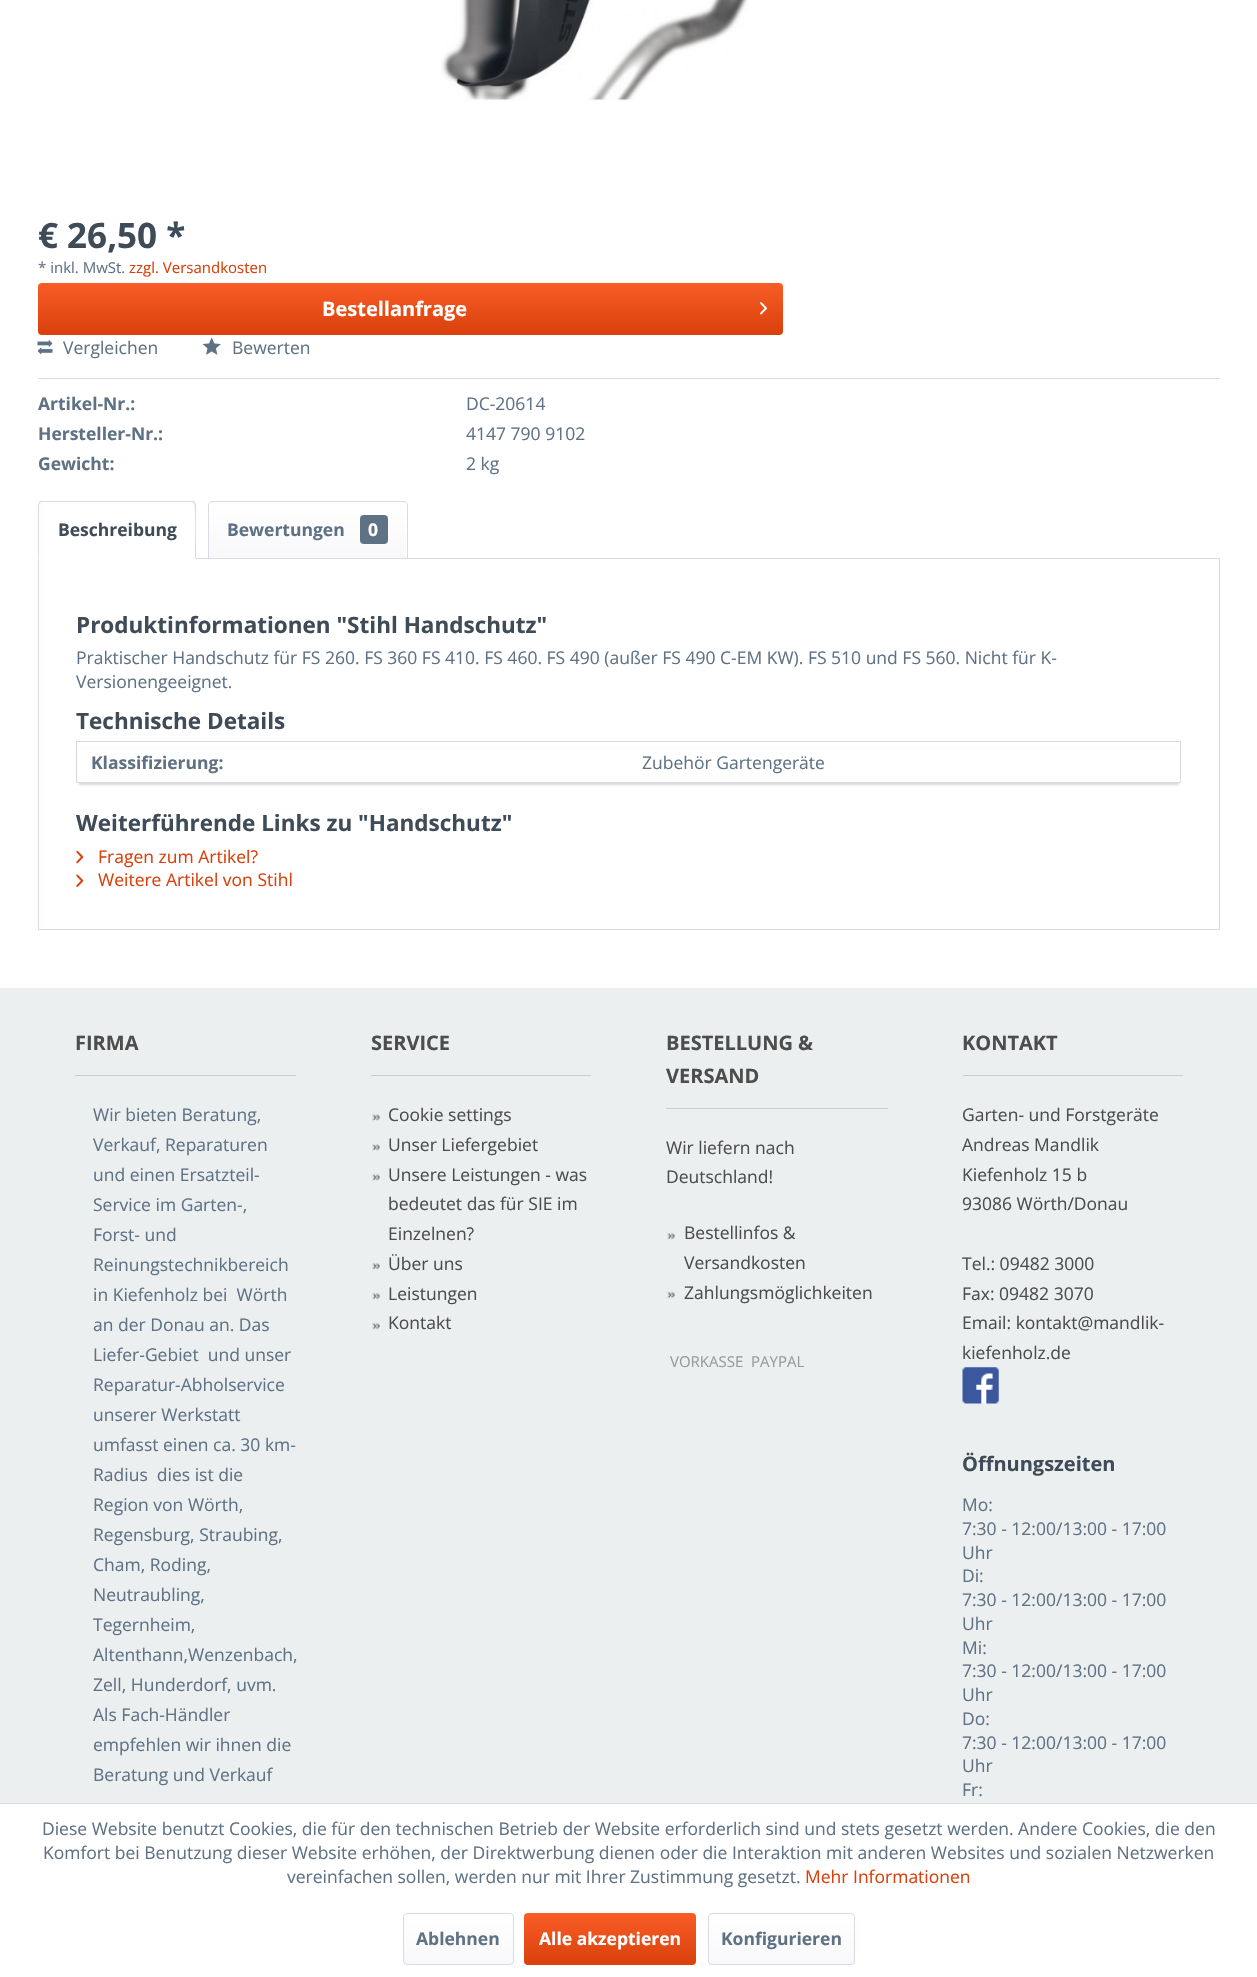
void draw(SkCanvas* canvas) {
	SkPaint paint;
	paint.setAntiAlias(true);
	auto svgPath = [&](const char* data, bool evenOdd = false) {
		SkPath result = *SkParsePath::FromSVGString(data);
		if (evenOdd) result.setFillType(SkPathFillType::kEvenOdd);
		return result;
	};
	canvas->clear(0xffffffff);
	canvas->drawImageRect(SkImages::DeferredFromEncodedData(SkData::MakeFromFileName("img1.png")), SkRect::MakeXYWH(441, 0, 307, 101), SkSamplingOptions());
	SkFont f1(fontMgr->matchFamilyStyle("Open Sans", SkFontStyle::Bold()), 35);
	f1.setSubpixel(true);
	paint.setColor(0xff3f4c58);
	canvas->drawString("€ 26,50 *", 38, 248, f1, paint);
	SkFont f2(fontMgr->matchFamilyStyle("Open Sans", SkFontStyle::Normal()), 15);
	f2.setSubpixel(true);
	paint.setColor(0xff5f7285);
	canvas->drawString("* inkl. MwSt.", 38, 273, f2, paint);
	paint.setColor(0xffd9400b);
	canvas->drawString("zzgl. Versandkosten", 129, 273, f2, paint);
	{
		const SkColor colors[] = {0xfffa5d27, 0xffd9400b};
		const float stops[] = {0, 1};
		const SkPoint ends[] = {{410, 282}, {410, 335}};
		paint.setShader(SkGradientShader::MakeLinear(ends, colors, stops, 2, SkTileMode::kClamp));
		paint.setAlpha(255);
	}
	canvas->drawRoundRect(SkRect::MakeXYWH(38, 283, 745, 52), 4, 4, paint);
	SkFont f3(fontMgr->matchFamilyStyle("Open Sans", SkFontStyle::Bold()), 20);
	f3.setSubpixel(true);
	paint.setShader(nullptr);
	paint.setColor(0xffffffff);
	canvas->drawString("Bestellanfrage", 322, 316, f3, paint);
	canvas->drawImageRect(SkImages::DeferredFromEncodedData(SkData::MakeFromFileName("img2.png")), SkRect::MakeXYWH(760, 302, 7, 13), SkSamplingOptions());
	paint.setColor(0xffdadae5);
	canvas->drawRect(SkRect::MakeXYWH(38, 378, 1182, 1), paint);
	canvas->drawImageRect(SkImages::DeferredFromEncodedData(SkData::MakeFromFileName("img3.png")), SkRect::MakeXYWH(37, 339, 16, 16), SkSamplingOptions());
	SkFont f4(fontMgr->matchFamilyStyle("Open Sans", SkFontStyle::Normal()), 17.5);
	f4.setSubpixel(true);
	paint.setColor(0xff5f7285);
	canvas->drawString("Vergleichen", 63, 354, f4, paint);
	canvas->drawImageRect(SkImages::DeferredFromEncodedData(SkData::MakeFromFileName("img4.png")), SkRect::MakeXYWH(202, 337, 19, 18), SkSamplingOptions());
	canvas->drawString("Bewerten", 232, 354, f4, paint);
	SkFont f5(fontMgr->matchFamilyStyle("Open Sans", SkFontStyle::Bold()), 17.5);
	f5.setSubpixel(true);
	canvas->drawString("Artikel-Nr.:", 38, 410, f5, paint);
	canvas->drawString("DC-20614", 466, 410, f4, paint);
	canvas->drawString("Hersteller-Nr.:", 38, 440, f5, paint);
	canvas->drawString("4147 790 9102", 466, 440, f4, paint);
	canvas->drawString("Gewicht:", 38, 470, f5, paint);
	canvas->drawString("2 kg", 466, 470, f4, paint);
	paint.setStroke(true);
	paint.setStrokeWidth(1);
	paint.setColor(0xffdadae5);
	canvas->drawRect(SkRect::MakeXYWH(38.5, 558.5, 1181, 371), paint);
	paint.setStroke(false);
	paint.setColor(0xffffffff);
	canvas->drawPath(svgPath("M42 501H192C194 501 196 503 196 505V559H38V505C38 503 40 501 42 501Z"), paint);
	paint.setColor(0xffdadae5);
	canvas->drawPath(svgPath("M41 502L40 503L39 502L40 501H168H194L195 502L194 503L192 502Z"), paint);
	canvas->drawPath(svgPath("M195 502L196 505V558H195C195 551 196 506 194 503Z"), paint);
	canvas->drawPath(svgPath("M38 558V505L39 502L40 503L39 505V557Z"), paint);
	paint.setColor(0xff3f4c58);
	canvas->drawString("Beschreibung", 58, 536, f5, paint);
	{
		const SkColor colors[] = {0xffffffff, 0xfff8f8fa};
		const float stops[] = {0, 1};
		const SkPoint ends[] = {{308, 503}, {308, 558}};
		paint.setShader(SkGradientShader::MakeLinear(ends, colors, stops, 2, SkTileMode::kClamp));
		paint.setAlpha(255);
	}
	canvas->drawPath(svgPath("M211.5 503H403.5C405 503 406 504 406 505.5V558H209V505.5C209 504 210 503 211.5 503Z"), paint);
	paint.setStroke(true);
	paint.setShader(nullptr);
	paint.setColor(0xffdadae5);
	canvas->drawPath(svgPath("M212 501.5H404C406 501.5 407.5 503 407.5 505V558.5H208.5V505C208.5 503 210 501.5 212 501.5Z"), paint);
	paint.setStroke(false);
	paint.setColor(0xff5f7285);
	canvas->drawString("Bewertungen", 227, 536, f5, paint);
	canvas->drawRoundRect(SkRect::MakeXYWH(360, 515, 28, 29), 4, 4, paint);
	paint.setColor(0xffffffff);
	canvas->drawString("0", 368, 536, f5, paint);
	SkFont f6(fontMgr->matchFamilyStyle("Open Sans", SkFontStyle::Bold()), 22.5);
	f6.setSubpixel(true);
	paint.setColor(0xff3f4c58);
	canvas->drawString("Produktinformationen \"Stihl Handschutz\"", 76, 633, f6, paint);
	paint.setColor(0xff5f7285);
	canvas->drawString("Praktischer Handschutz für FS 260. FS 360 FS 410. FS 460. FS 490 (außer FS 490 C-EM KW). FS 510 und FS 560. Nicht für K-", 76, 664, f4, paint);
	canvas->drawString("Versionengeeignet.", 76, 688, f4, paint);
	paint.setColor(0xff3f4c58);
	canvas->drawString("Technische Details", 76, 729, f6, paint);
	paint.setColor(0xffdbdada);
	paint.setMaskFilter(SkMaskFilter::MakeBlur(kNormal_SkBlurStyle, 1));
	canvas->drawRect(SkRect::MakeXYWH(79, 749, 1100, 36), paint);
	paint.setMaskFilter(nullptr);
	paint.setColor(0xffffffff);
	canvas->drawRect(SkRect::MakeXYWH(78, 748, 1102, 34), paint);
	paint.setStroke(true);
	paint.setColor(0xffdbdada);
	canvas->drawRect(SkRect::MakeXYWH(76.5, 741.5, 1104, 41), paint);
	paint.setStroke(false);
	paint.setColor(0xff5f7285);
	canvas->drawString("Klassifizierung:", 91, 769, f5, paint);
	canvas->drawString("Zubehör Gartengeräte", 642, 769, f4, paint);
	paint.setColor(0xff3f4c58);
	canvas->drawString("Weiterführende Links zu \"Handschutz\"", 76, 831, f6, paint);
	canvas->drawImageRect(SkImages::DeferredFromEncodedData(SkData::MakeFromFileName("img5.png")), SkRect::MakeXYWH(76, 850, 8, 14), SkSamplingOptions());
	paint.setColor(0xffd9400b);
	canvas->drawString("Fragen zum Artikel?", 98, 863, f4, paint);
	canvas->drawImageRect(SkImages::DeferredFromEncodedData(SkData::MakeFromFileName("img6.png")), SkRect::MakeXYWH(76, 874, 8, 13), SkSamplingOptions());
	canvas->drawString("Weitere Artikel von Stihl", 98, 886, f4, paint);
	paint.setColor(0xffeceff0);
	canvas->drawRect(SkRect::MakeXYWH(0, 988, 1257, 815), paint);
	paint.setColor(0xffcdcdcd);
	canvas->drawRect(SkRect::MakeXYWH(75, 1075, 221, 1), paint);
	paint.setColor(0xff4d4d4d);
	canvas->drawString("FIRMA", 75, 1050, f3, paint);
	paint.setColor(0xff5f7285);
	canvas->drawString("Wir bieten Beratung,", 93, 1121, f4, paint);
	canvas->drawString("Verkauf, Reparaturen", 93, 1151, f4, paint);
	canvas->drawString("und einen Ersatzteil-", 93, 1181, f4, paint);
	canvas->drawString("Service im Garten-,", 93, 1211, f4, paint);
	canvas->drawString("Forst- und", 93, 1241, f4, paint);
	canvas->drawString("Reinungstechnikbereich", 93, 1271, f4, paint);
	canvas->drawString("in Kiefenholz bei  Wörth", 93, 1301, f4, paint);
	canvas->drawString("an der Donau an. Das", 93, 1331, f4, paint);
	canvas->drawString("Liefer-Gebiet  und unser", 93, 1361, f4, paint);
	canvas->drawString("Reparatur-Abholservice", 93, 1391, f4, paint);
	canvas->drawString("unserer Werkstatt", 93, 1421, f4, paint);
	canvas->drawString("umfasst einen ca. 30 km-", 93, 1451, f4, paint);
	canvas->drawString("Radius  dies ist die", 93, 1481, f4, paint);
	canvas->drawString("Region von Wörth,", 93, 1511, f4, paint);
	canvas->drawString("Regensburg, Straubing,", 93, 1541, f4, paint);
	canvas->drawString("Cham, Roding,", 93, 1571, f4, paint);
	canvas->drawString("Neutraubling,", 93, 1601, f4, paint);
	canvas->drawString("Tegernheim,", 93, 1631, f4, paint);
	canvas->drawString("Altenthann,Wenzenbach,", 93, 1661, f4, paint);
	canvas->drawString("Zell, Hunderdorf, uvm.", 93, 1691, f4, paint);
	canvas->drawString("Als Fach-Händler", 93, 1721, f4, paint);
	canvas->drawString("empfehlen wir ihnen die", 93, 1751, f4, paint);
	canvas->drawString("Beratung und Verkauf", 93, 1781, f4, paint);
	paint.setColor(0xffcdcdcd);
	canvas->drawRect(SkRect::MakeXYWH(371, 1075, 220, 1), paint);
	paint.setColor(0xff4d4d4d);
	canvas->drawString("SERVICE", 371, 1050, f3, paint);
	canvas->drawImageRect(SkImages::DeferredFromEncodedData(SkData::MakeFromFileName("img7.png")), SkRect::MakeXYWH(372, 1113, 8, 8), SkSamplingOptions());
	canvas->drawString("Cookie settings", 388, 1121, f4, paint);
	canvas->drawImageRect(SkImages::DeferredFromEncodedData(SkData::MakeFromFileName("img7.png")), SkRect::MakeXYWH(372, 1143, 8, 8), SkSamplingOptions());
	canvas->drawString("Unser Liefergebiet", 388, 1151, f4, paint);
	canvas->drawImageRect(SkImages::DeferredFromEncodedData(SkData::MakeFromFileName("img7.png")), SkRect::MakeXYWH(372, 1173, 8, 8), SkSamplingOptions());
	canvas->drawString("Unsere Leistungen - was", 388, 1181, f4, paint);
	canvas->drawString("bedeutet das für SIE im", 388, 1210, f4, paint);
	canvas->drawString("Einzelnen?", 388, 1240, f4, paint);
	canvas->drawImageRect(SkImages::DeferredFromEncodedData(SkData::MakeFromFileName("img8.png")), SkRect::MakeXYWH(372, 1262, 8, 8), SkSamplingOptions());
	canvas->drawString("Über uns", 388, 1270, f4, paint);
	canvas->drawImageRect(SkImages::DeferredFromEncodedData(SkData::MakeFromFileName("img9.png")), SkRect::MakeXYWH(372, 1292, 8, 8), SkSamplingOptions());
	canvas->drawString("Leistungen", 388, 1300, f4, paint);
	canvas->drawImageRect(SkImages::DeferredFromEncodedData(SkData::MakeFromFileName("img9.png")), SkRect::MakeXYWH(372, 1322, 8, 8), SkSamplingOptions());
	canvas->drawString("Kontakt", 388, 1329, f4, paint);
	paint.setColor(0xffcdcdcd);
	canvas->drawRect(SkRect::MakeXYWH(666, 1108, 222, 1), paint);
	paint.setColor(0xff4d4d4d);
	canvas->drawString("BESTELLUNG &", 666, 1050, f3, paint);
	canvas->drawString("VERSAND", 666, 1083, f3, paint);
	canvas->drawString("Wir liefern nach", 666, 1154, f4, paint);
	canvas->drawString("Deutschland!", 666, 1183, f4, paint);
	canvas->drawImageRect(SkImages::DeferredFromEncodedData(SkData::MakeFromFileName("img10.png")), SkRect::MakeXYWH(667, 1232, 8, 8), SkSamplingOptions());
	canvas->drawString("Bestellinfos &", 684, 1239, f4, paint);
	canvas->drawString("Versandkosten", 684, 1269, f4, paint);
	canvas->drawImageRect(SkImages::DeferredFromEncodedData(SkData::MakeFromFileName("img11.png")), SkRect::MakeXYWH(667, 1291, 8, 8), SkSamplingOptions());
	canvas->drawString("Zahlungsmöglichkeiten", 684, 1299, f4, paint);
	paint.setColor(0xff999999);
	canvas->drawString("VORKASSE", 670, 1367, f2, paint);
	canvas->drawString("PAYPAL", 751, 1367, f2, paint);
	paint.setColor(0xffcdcdcd);
	canvas->drawRect(SkRect::MakeXYWH(963, 1075, 220, 1), paint);
	paint.setColor(0xff4d4d4d);
	canvas->drawString("KONTAKT", 962, 1050, f3, paint);
	canvas->drawString("Garten- und Forstgeräte", 962, 1121, f4, paint);
	canvas->drawString("Andreas Mandlik", 962, 1151, f4, paint);
	canvas->drawString("Kiefenholz 15 b", 962, 1181, f4, paint);
	canvas->drawString("93086 Wörth/Donau", 962, 1210, f4, paint);
	canvas->drawString("Tel.: 09482 3000", 962, 1270, f4, paint);
	canvas->drawString("Fax: 09482 3070", 962, 1300, f4, paint);
	canvas->drawString("Email: kontakt@mandlik-", 962, 1329, f4, paint);
	canvas->drawString("kiefenholz.de", 962, 1359, f4, paint);
	canvas->drawImageRect(SkImages::DeferredFromEncodedData(SkData::MakeFromFileName("img12.png")), SkRect::MakeXYWH(962, 1367, 37, 37), SkSamplingOptions());
	paint.setColor(0xff3f4c58);
	canvas->drawString("Öffnungszeiten", 962, 1471, f3, paint);
	paint.setColor(0xff5f7285);
	canvas->drawString("Mo:", 962, 1511, f4, paint);
	canvas->drawString("7:30 - 12:00/13:00 - 17:00", 962, 1535, f4, paint);
	canvas->drawString("Uhr", 962, 1559, f4, paint);
	canvas->drawString("Di:", 962, 1582, f4, paint);
	canvas->drawString("7:30 - 12:00/13:00 - 17:00", 962, 1606, f4, paint);
	canvas->drawString("Uhr", 962, 1630, f4, paint);
	canvas->drawString("Mi:", 962, 1654, f4, paint);
	canvas->drawString("7:30 - 12:00/13:00 - 17:00", 962, 1677, f4, paint);
	canvas->drawString("Uhr", 962, 1701, f4, paint);
	canvas->drawString("Do:", 962, 1725, f4, paint);
	canvas->drawString("7:30 - 12:00/13:00 - 17:00", 962, 1749, f4, paint);
	canvas->drawString("Uhr", 962, 1772, f4, paint);
	canvas->drawString("Fr:", 962, 1796, f4, paint);
	paint.setColor(0xffdadae5);
	canvas->drawRect(SkRect::MakeXYWH(0, 1803, 1257, 1), paint);
	paint.setColor(0xff5f7285);
	canvas->drawString("Diese Website benutzt Cookies, die für den technischen Betrieb der Website erforderlich sind und stets gesetzt werden. Andere Cookies, die den", 42, 1835, f4, paint);
	canvas->drawString("Komfort bei Benutzung dieser Website erhöhen, der Direktwerbung dienen oder die Interaktion mit anderen Websites und sozialen Netzwerken", 43, 1859, f4, paint);
	canvas->drawString("vereinfachen sollen, werden nur mit Ihrer Zustimmung gesetzt.", 287, 1883, f4, paint);
	paint.setColor(0xffd9400b);
	canvas->drawString("Mehr Informationen", 805, 1883, f4, paint);
	{
		const SkColor colors[] = {0xffffffff, 0xfff8f8fa};
		const float stops[] = {0, 1};
		const SkPoint ends[] = {{458, 1914}, {458, 1964}};
		paint.setShader(SkGradientShader::MakeLinear(ends, colors, stops, 2, SkTileMode::kClamp));
		paint.setAlpha(255);
	}
	canvas->drawRoundRect(SkRect::MakeXYWH(404, 1914, 109, 50), 2.5, 2.5, paint);
	paint.setStroke(true);
	paint.setShader(nullptr);
	paint.setColor(0xffdadae5);
	canvas->drawRoundRect(SkRect::MakeXYWH(403.5, 1913.5, 110, 51), 3.5, 3.5, paint);
	paint.setStroke(false);
	paint.setColor(0xff5f7285);
	canvas->drawString("Ablehnen", 416, 1945, f5, paint);
	{
		const SkColor colors[] = {0xfffa5d27, 0xffd9400b};
		const float stops[] = {0, 1};
		const SkPoint ends[] = {{610, 1913}, {610, 1965}};
		paint.setShader(SkGradientShader::MakeLinear(ends, colors, stops, 2, SkTileMode::kClamp));
		paint.setAlpha(255);
	}
	canvas->drawRoundRect(SkRect::MakeXYWH(524, 1913, 172, 52), 4, 4, paint);
	paint.setShader(nullptr);
	paint.setColor(0xffffffff);
	canvas->drawString("Alle akzeptieren", 539, 1945, f5, paint);
	{
		const SkColor colors[] = {0xffffffff, 0xfff8f8fa};
		const float stops[] = {0, 1};
		const SkPoint ends[] = {{781, 1914}, {781, 1964}};
		paint.setShader(SkGradientShader::MakeLinear(ends, colors, stops, 2, SkTileMode::kClamp));
		paint.setAlpha(255);
	}
	canvas->drawRoundRect(SkRect::MakeXYWH(709, 1914, 145, 50), 2.5, 2.5, paint);
	paint.setStroke(true);
	paint.setShader(nullptr);
	paint.setColor(0xffdadae5);
	canvas->drawRoundRect(SkRect::MakeXYWH(708.5, 1913.5, 146, 51), 3.5, 3.5, paint);
	paint.setStroke(false);
	paint.setColor(0xff5f7285);
	canvas->drawString("Konfigurieren", 721, 1945, f5, paint);
}
